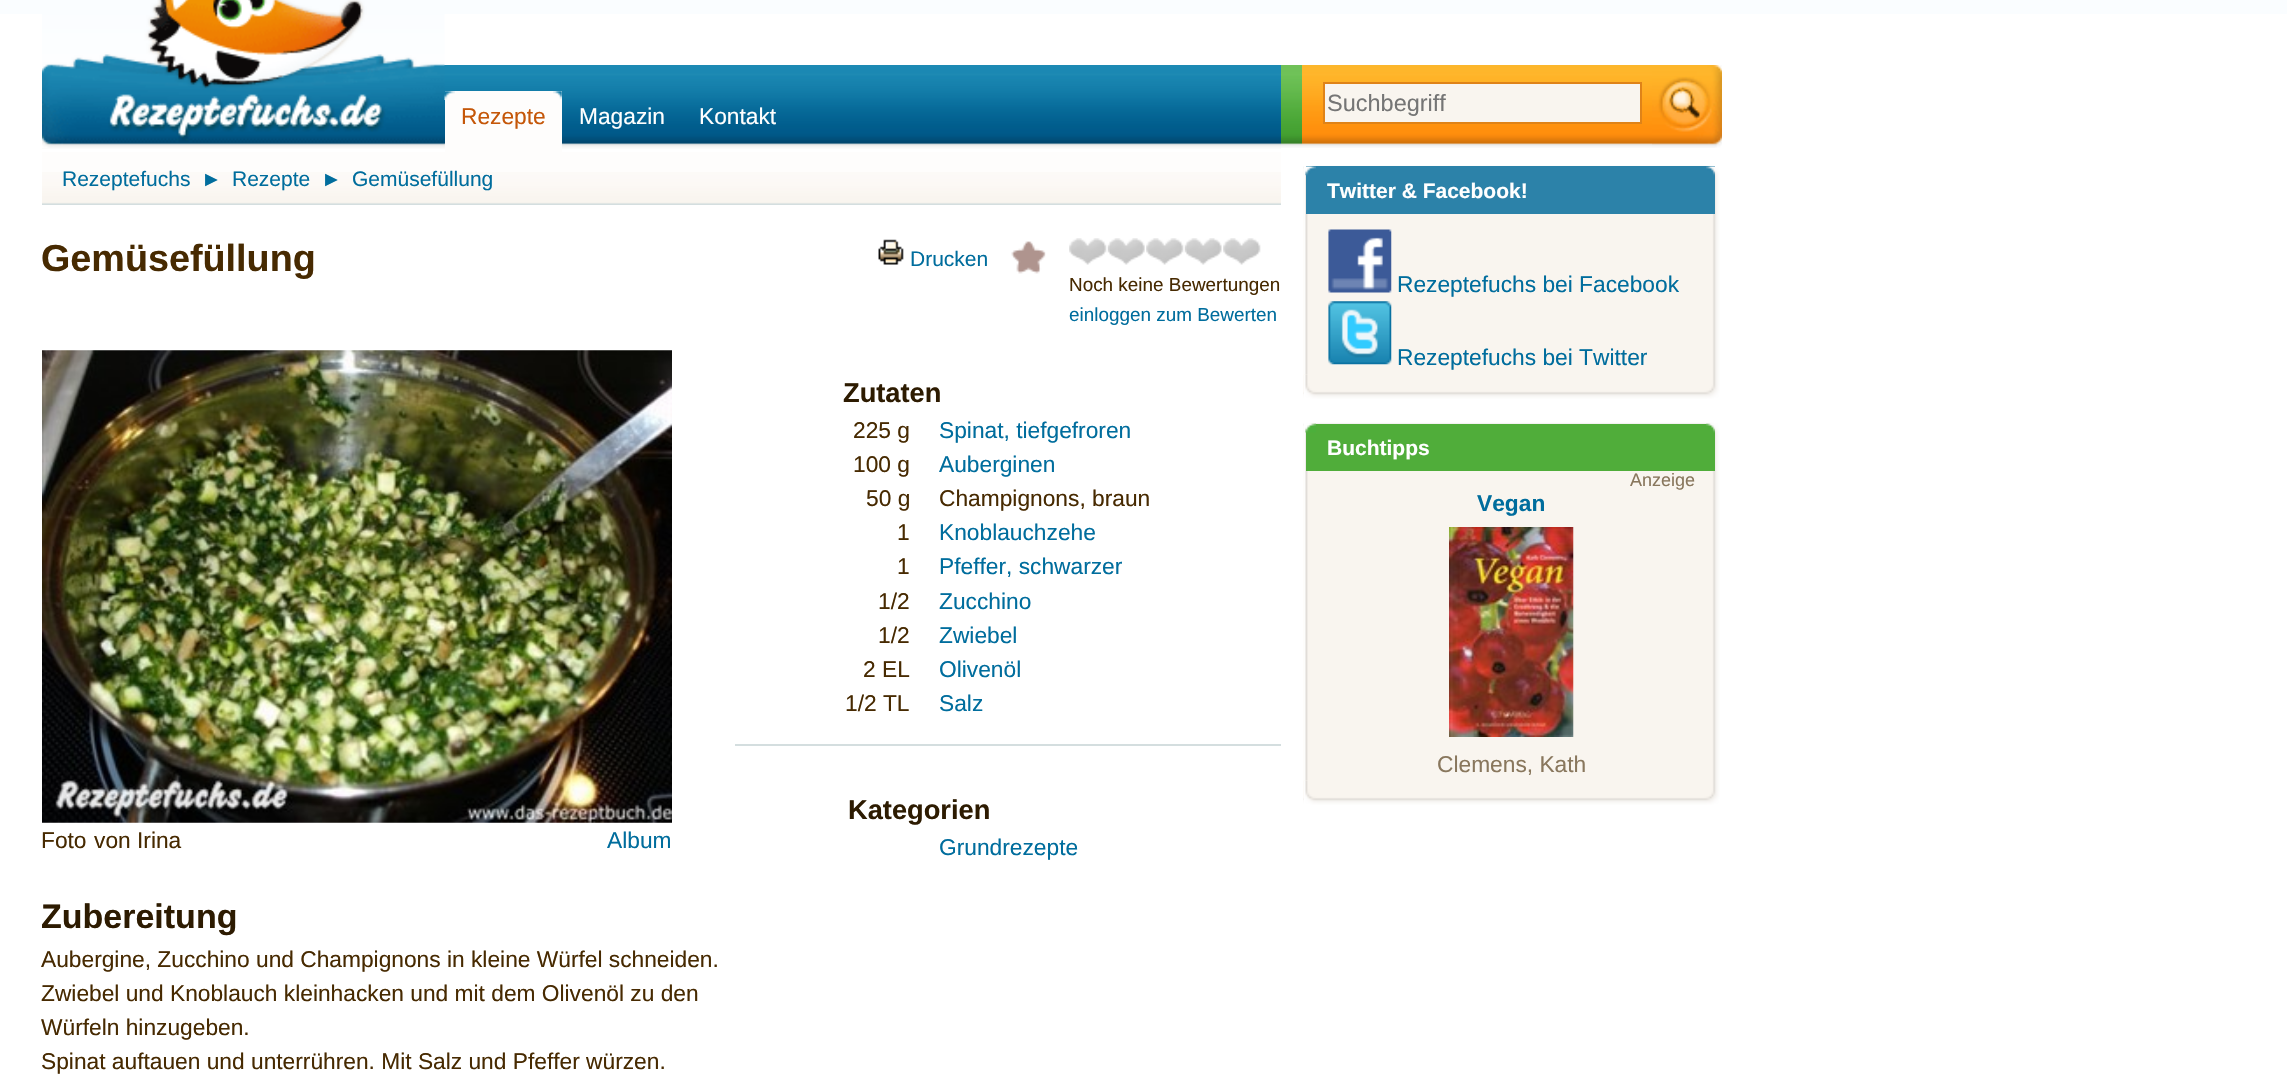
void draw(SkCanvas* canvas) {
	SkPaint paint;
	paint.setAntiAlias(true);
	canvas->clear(0xffffffff);
	paint.setColor(0xfffafdff);
	canvas->drawRect(SkRect::MakeXYWH(0, 0, 2287, 14), paint);
	canvas->drawImageRect(SkImages::DeferredFromEncodedData(SkData::MakeFromFileName("img1.png")), SkRect::MakeXYWH(1281, 65, 21, 83), SkSamplingOptions());
	canvas->drawImageRect(SkImages::DeferredFromEncodedData(SkData::MakeFromFileName("img2.png")), SkRect::MakeXYWH(42, 65, 1239, 84), SkSamplingOptions());
	canvas->drawImageRect(SkImages::DeferredFromEncodedData(SkData::MakeFromFileName("img3.png")), SkRect::MakeXYWH(42, 0, 403, 148), SkSamplingOptions());
	paint.setColor(0xfffefdfc);
	canvas->drawRect(SkRect::MakeXYWH(445, 91, 117, 61), paint);
	canvas->drawImageRect(SkImages::DeferredFromEncodedData(SkData::MakeFromFileName("img4.png")), SkRect::MakeXYWH(444, 91, 11, 9), SkSamplingOptions());
	canvas->drawImageRect(SkImages::DeferredFromEncodedData(SkData::MakeFromFileName("img5.png")), SkRect::MakeXYWH(553, 91, 9, 9), SkSamplingOptions());
	SkFont f1(fontMgr->matchFamilyStyle("Liberation Sans", SkFontStyle::Normal()), 22.75);
	f1.setSubpixel(true);
	paint.setColor(0xffc55709);
	canvas->drawString("Rezepte", 461, 124, f1, paint);
	paint.setColor(0xffffffff);
	canvas->drawString("Magazin", 579, 124, f1, paint);
	canvas->drawString("Kontakt", 699, 124, f1, paint);
	paint.setColor(0xfffefdfc);
	canvas->drawRect(SkRect::MakeXYWH(42, 152, 1239, 20), paint);
	canvas->drawImageRect(SkImages::DeferredFromEncodedData(SkData::MakeFromFileName("img6.png")), SkRect::MakeXYWH(42, 172, 1239, 33), SkSamplingOptions());
	SkFont f2(fontMgr->matchFamilyStyle("Liberation Sans", SkFontStyle::Normal()), 21);
	f2.setSubpixel(true);
	paint.setColor(0xff006d9d);
	canvas->drawString("Rezeptefuchs", 62, 186, f2, paint);
	canvas->drawString("►", 201, 186, f2, paint);
	canvas->drawString("Rezepte", 232, 186, f2, paint);
	canvas->drawString("►", 321, 186, f2, paint);
	canvas->drawString("Gemüsefüllung", 352, 186, f2, paint);
	SkFont f3(fontMgr->matchFamilyStyle("Liberation Sans", SkFontStyle::Bold()), 37.75);
	f3.setSubpixel(true);
	paint.setColor(0xff472a01);
	canvas->drawString("Gemüsefüllung", 41, 271, f3, paint);
	canvas->drawImageRect(SkImages::DeferredFromEncodedData(SkData::MakeFromFileName("img7.png")), SkRect::MakeXYWH(878, 239, 26, 26), SkSamplingOptions());
	paint.setColor(0xff006d9d);
	canvas->drawString("Drucken", 910, 266, f2, paint);
	canvas->drawImageRect(SkImages::DeferredFromEncodedData(SkData::MakeFromFileName("img8.png")), SkRect::MakeXYWH(1011, 241, 35, 33), SkSamplingOptions());
	canvas->drawImageRect(SkImages::DeferredFromEncodedData(SkData::MakeFromFileName("img9.png")), SkRect::MakeXYWH(1069, 238, 38, 27), SkSamplingOptions());
	canvas->drawImageRect(SkImages::DeferredFromEncodedData(SkData::MakeFromFileName("img10.png")), SkRect::MakeXYWH(1107, 238, 38, 27), SkSamplingOptions());
	canvas->drawImageRect(SkImages::DeferredFromEncodedData(SkData::MakeFromFileName("img11.png")), SkRect::MakeXYWH(1146, 238, 38, 27), SkSamplingOptions());
	canvas->drawImageRect(SkImages::DeferredFromEncodedData(SkData::MakeFromFileName("img12.png")), SkRect::MakeXYWH(1184, 238, 38, 27), SkSamplingOptions());
	canvas->drawImageRect(SkImages::DeferredFromEncodedData(SkData::MakeFromFileName("img11.png")), SkRect::MakeXYWH(1223, 238, 38, 27), SkSamplingOptions());
	SkFont f4(fontMgr->matchFamilyStyle("Liberation Sans", SkFontStyle::Normal()), 18.9);
	f4.setSubpixel(true);
	paint.setColor(0xff472a01);
	canvas->drawString("Noch keine Bewertungen", 1069, 291, f4, paint);
	paint.setColor(0xff006d9d);
	canvas->drawString("einloggen zum Bewerten", 1069, 321, f4, paint);
	SkFont f5(fontMgr->matchFamilyStyle("Liberation Sans", SkFontStyle::Bold()), 27.25);
	f5.setSubpixel(true);
	paint.setColor(0xff2d1b01);
	canvas->drawString("Zutaten", 843, 402, f5, paint);
	paint.setColor(0xff472a01);
	canvas->drawString("225 g", 853, 438, f1, paint);
	paint.setColor(0xff006d9d);
	canvas->drawString("Spinat, tiefgefroren", 939, 438, f1, paint);
	paint.setColor(0xff472a01);
	canvas->drawString("100 g", 853, 472, f1, paint);
	paint.setColor(0xff006d9d);
	canvas->drawString("Auberginen", 939, 472, f1, paint);
	paint.setColor(0xff472a01);
	canvas->drawString("50 g", 866, 506, f1, paint);
	canvas->drawString("Champignons, braun", 939, 506, f1, paint);
	canvas->drawString("1", 897, 540, f1, paint);
	paint.setColor(0xff006d9d);
	canvas->drawString("Knoblauchzehe", 939, 540, f1, paint);
	paint.setColor(0xff472a01);
	canvas->drawString("1", 897, 574, f1, paint);
	paint.setColor(0xff006d9d);
	canvas->drawString("Pfeffer, schwarzer", 939, 574, f1, paint);
	paint.setColor(0xff472a01);
	canvas->drawString("1/2", 878, 609, f1, paint);
	paint.setColor(0xff006d9d);
	canvas->drawString("Zucchino", 939, 609, f1, paint);
	paint.setColor(0xff472a01);
	canvas->drawString("1/2", 878, 643, f1, paint);
	paint.setColor(0xff006d9d);
	canvas->drawString("Zwiebel", 939, 643, f1, paint);
	paint.setColor(0xff472a01);
	canvas->drawString("2 EL", 863, 677, f1, paint);
	paint.setColor(0xff006d9d);
	canvas->drawString("Olivenöl", 939, 677, f1, paint);
	paint.setColor(0xff472a01);
	canvas->drawString("1/2 TL", 845, 711, f1, paint);
	paint.setColor(0xff006d9d);
	canvas->drawString("Salz", 939, 711, f1, paint);
	paint.setColor(0xffd4dedf);
	canvas->drawRect(SkRect::MakeXYWH(735, 744, 546, 2), paint);
	paint.setColor(0xff2d1b01);
	canvas->drawString("Kategorien", 848, 819, f5, paint);
	paint.setColor(0xff006d9d);
	canvas->drawString("Grundrezepte", 939, 855, f1, paint);
	canvas->drawImageRect(SkImages::DeferredFromEncodedData(SkData::MakeFromFileName("img13.png")), SkRect::MakeXYWH(42, 350, 630, 473), SkSamplingOptions());
	paint.setColor(0xff472a01);
	canvas->drawString("Foto", 41, 848, f1, paint);
	canvas->drawString("von Irina", 94, 848, f1, paint);
	paint.setColor(0xff006d9d);
	canvas->drawString("Album", 607, 848, f1, paint);
	SkFont f6(fontMgr->matchFamilyStyle("Liberation Sans", SkFontStyle::Bold()), 34);
	f6.setSubpixel(true);
	paint.setColor(0xff2d1b01);
	canvas->drawString("Zubereitung", 41, 928, f6, paint);
	paint.setColor(0xff472a01);
	canvas->drawString("Aubergine, Zucchino und Champignons in kleine Würfel schneiden.", 41, 967, f1, paint);
	canvas->drawString("Zwiebel und Knoblauch kleinhacken und mit dem Olivenöl zu den", 41, 1001, f1, paint);
	canvas->drawString("Würfeln hinzugeben.", 41, 1035, f1, paint);
	canvas->drawString("Spinat auftauen und unterrühren. Mit Salz und Pfeffer würzen.", 41, 1069, f1, paint);
	canvas->drawImageRect(SkImages::DeferredFromEncodedData(SkData::MakeFromFileName("img14.png")), SkRect::MakeXYWH(1302, 65, 350, 83), SkSamplingOptions());
	paint.setColor(0xfff9f5ef);
	canvas->drawRect(SkRect::MakeXYWH(1324, 83, 317, 40), paint);
	paint.setStroke(true);
	paint.setStrokeWidth(2);
	paint.setColor(0xffdf8318);
	canvas->drawRect(SkRect::MakeXYWH(1324, 83, 317, 40), paint);
	SkFont f7(fontMgr->matchFamilyStyle("Liberation Sans", SkFontStyle::Normal()), 23.5);
	f7.setSubpixel(true);
	paint.setStroke(false);
	paint.setColor(0xff757575);
	canvas->drawString("Suchbegriff", 1327, 111, f7, paint);
	canvas->drawImageRect(SkImages::DeferredFromEncodedData(SkData::MakeFromFileName("img15.png")), SkRect::MakeXYWH(1652, 65, 70, 83), SkSamplingOptions());
	canvas->drawImageRect(SkImages::DeferredFromEncodedData(SkData::MakeFromFileName("img16.png")), SkRect::MakeXYWH(1303, 165, 417, 229), SkSamplingOptions());
	canvas->drawImageRect(SkImages::DeferredFromEncodedData(SkData::MakeFromFileName("img20.png")), SkRect::MakeXYWH(1328, 229, 64, 64), SkSamplingOptions());
	canvas->drawImageRect(SkImages::DeferredFromEncodedData(SkData::MakeFromFileName("img21.png")), SkRect::MakeXYWH(1328, 301, 64, 64), SkSamplingOptions());
	canvas->drawImageRect(SkImages::DeferredFromEncodedData(SkData::MakeFromFileName("img17.png")), SkRect::MakeXYWH(1304, 165, 25, 210), SkSamplingOptions());
	paint.setColor(0xff2c82a9);
	canvas->drawRect(SkRect::MakeXYWH(1306, 166, 409, 48), paint);
	canvas->drawImageRect(SkImages::DeferredFromEncodedData(SkData::MakeFromFileName("img18.png")), SkRect::MakeXYWH(1305, 166, 11, 10), SkSamplingOptions());
	canvas->drawImageRect(SkImages::DeferredFromEncodedData(SkData::MakeFromFileName("img19.png")), SkRect::MakeXYWH(1706, 166, 9, 10), SkSamplingOptions());
	SkFont f8(fontMgr->matchFamilyStyle("Liberation Sans", SkFontStyle::Bold()), 21);
	f8.setSubpixel(true);
	paint.setColor(0xffffffff);
	canvas->drawString("Twitter & Facebook!", 1327, 198, f8, paint);
	paint.setColor(0xff006d9d);
	canvas->drawString("Rezeptefuchs bei Facebook", 1397, 292, f1, paint);
	canvas->drawString("Rezeptefuchs bei Twitter", 1397, 365, f1, paint);
	canvas->drawImageRect(SkImages::DeferredFromEncodedData(SkData::MakeFromFileName("img22.png")), SkRect::MakeXYWH(1303, 374, 417, 25), SkSamplingOptions());
	canvas->drawImageRect(SkImages::DeferredFromEncodedData(SkData::MakeFromFileName("img23.png")), SkRect::MakeXYWH(1304, 375, 24, 24), SkSamplingOptions());
	canvas->drawImageRect(SkImages::DeferredFromEncodedData(SkData::MakeFromFileName("img24.png")), SkRect::MakeXYWH(1303, 422, 417, 378), SkSamplingOptions());
	canvas->drawImageRect(SkImages::DeferredFromEncodedData(SkData::MakeFromFileName("img25.png")), SkRect::MakeXYWH(1304, 422, 24, 359), SkSamplingOptions());
	paint.setColor(0xff50ad3a);
	canvas->drawRect(SkRect::MakeXYWH(1306, 424, 409, 47), paint);
	canvas->drawImageRect(SkImages::DeferredFromEncodedData(SkData::MakeFromFileName("img26.png")), SkRect::MakeXYWH(1305, 423, 11, 10), SkSamplingOptions());
	canvas->drawImageRect(SkImages::DeferredFromEncodedData(SkData::MakeFromFileName("img27.png")), SkRect::MakeXYWH(1706, 423, 9, 10), SkSamplingOptions());
	paint.setColor(0xffffffff);
	canvas->drawString("Buchtipps", 1327, 455, f8, paint);
	SkFont f9(fontMgr->matchFamilyStyle("Liberation Sans", SkFontStyle::Normal()), 18);
	f9.setSubpixel(true);
	paint.setColor(0xff89775d);
	canvas->drawString("Anzeige", 1630, 486, f9, paint);
	SkFont f10(fontMgr->matchFamilyStyle("Liberation Sans", SkFontStyle::Bold()), 22.75);
	f10.setSubpixel(true);
	paint.setColor(0xff006d9d);
	canvas->drawString("Vegan", 1477, 511, f10, paint);
	canvas->drawImageRect(SkImages::DeferredFromEncodedData(SkData::MakeFromFileName("img28.png")), SkRect::MakeXYWH(1449, 527, 125, 210), SkSamplingOptions());
	paint.setColor(0xff89775d);
	canvas->drawString("Clemens, Kath", 1437, 772, f1, paint);
	canvas->drawImageRect(SkImages::DeferredFromEncodedData(SkData::MakeFromFileName("img22.png")), SkRect::MakeXYWH(1303, 780, 417, 25), SkSamplingOptions());
	canvas->drawImageRect(SkImages::DeferredFromEncodedData(SkData::MakeFromFileName("img23.png")), SkRect::MakeXYWH(1304, 781, 24, 24), SkSamplingOptions());
}
